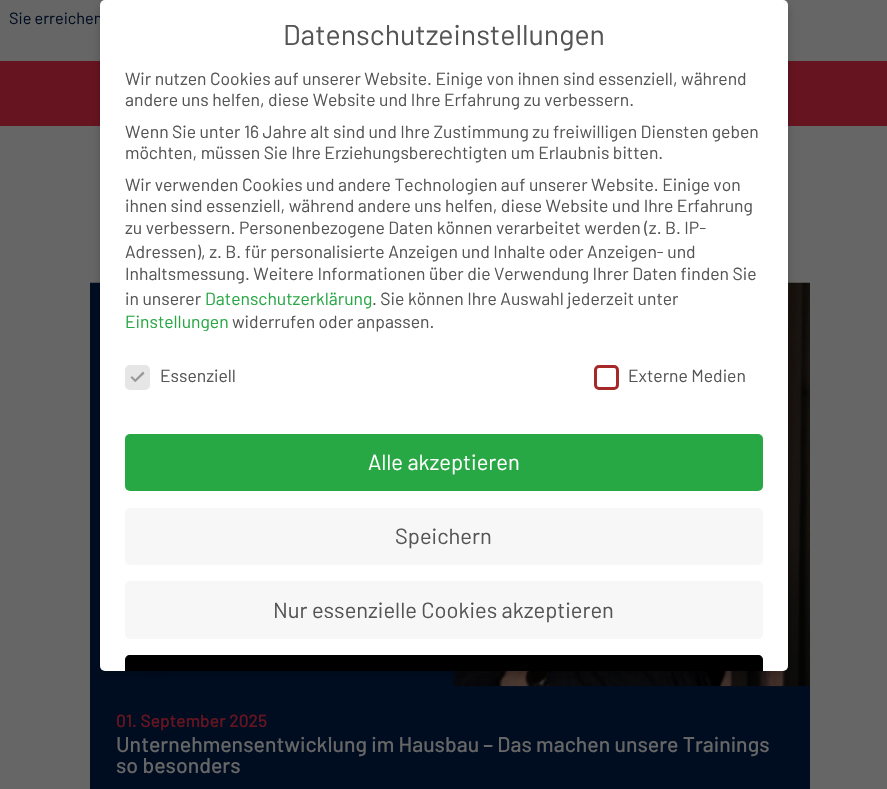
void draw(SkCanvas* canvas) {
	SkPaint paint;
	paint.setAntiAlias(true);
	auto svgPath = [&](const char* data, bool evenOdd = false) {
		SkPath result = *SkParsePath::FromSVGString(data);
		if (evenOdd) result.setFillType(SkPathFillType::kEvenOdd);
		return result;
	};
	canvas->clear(0xff666666);
	SkFont f1(fontMgr->matchFamilyStyle("Barlow", SkFontStyle::Normal()), 16.25);
	f1.setSubpixel(true);
	paint.setColor(0xff000d21);
	canvas->drawString("Sie erreichen", 9, 24, f1, paint);
	paint.setColor(0xff66141f);
	canvas->drawRect(SkRect::MakeXYWH(0, 61, 887, 65), paint);
	paint.setColor(0xff000d21);
	canvas->drawRect(SkRect::MakeXYWH(90, 686, 720, 103), paint);
	canvas->drawImageRect(SkImages::DeferredFromEncodedData(SkData::MakeFromFileName("img1.png")), SkRect::MakeXYWH(90, 282, 720, 405), SkSamplingOptions());
	paint.setColor(0x33000000);
	paint.setMaskFilter(SkMaskFilter::MakeBlur(kNormal_SkBlurStyle, 5));
	canvas->drawRoundRect(SkRect::MakeXYWH(100, 5, 688, 671), 5, 5, paint);
	paint.setMaskFilter(nullptr);
	paint.setColor(0xffffffff);
	canvas->drawRoundRect(SkRect::MakeXYWH(100, 0, 688, 671), 5, 5, paint);
	SkFont f2(fontMgr->matchFamilyStyle("Barlow", SkFontStyle::Normal()), 28.5);
	f2.setSubpixel(true);
	paint.setColor(0xff555555);
	canvas->drawString("Datenschutzeinstellungen", 283, 45, f2, paint);
	SkFont f3(fontMgr->matchFamilyStyle("Barlow", SkFontStyle::Normal()), 17.5);
	f3.setSubpixel(true);
	canvas->drawString("Wir nutzen Cookies auf unserer Website. Einige von ihnen sind essenziell, während", 125, 85, f3, paint);
	canvas->drawString("andere uns helfen, diese Website und Ihre Erfahrung zu verbessern.", 125, 106, f3, paint);
	canvas->drawString("Wenn Sie unter 16 Jahre alt sind und Ihre Zustimmung zu freiwilligen Diensten geben", 125, 138, f3, paint);
	canvas->drawString("möchten, müssen Sie Ihre Erziehungsberechtigten um Erlaubnis bitten.", 125, 159, f3, paint);
	canvas->drawString("Wir verwenden Cookies und andere Technologien auf unserer Website. Einige von", 125, 191, f3, paint);
	canvas->drawString("ihnen sind essenziell, während andere uns helfen, diese Website und Ihre Erfahrung", 125, 212, f3, paint);
	canvas->drawString("zu verbessern. Personenbezogene Daten können verarbeitet werden (z. B. IP-", 125, 234, f3, paint);
	canvas->drawString("Adressen), z. B. für personalisierte Anzeigen und Inhalte oder Anzeigen- und", 125, 258, f3, paint);
	canvas->drawString("Inhaltsmessung. Weitere Informationen über die Verwendung Ihrer Daten finden Sie", 125, 280, f3, paint);
	canvas->drawString("in unserer", 125, 305, f3, paint);
	paint.setColor(0xff28a745);
	canvas->drawString("Datenschutzerklärung", 205, 305, f3, paint);
	paint.setColor(0xff555555);
	canvas->drawString(". Sie können Ihre Auswahl jederzeit unter", 372, 305, f3, paint);
	canvas->save();
	canvas->clipRect(SkRect::MakeXYWH(125, 68, 638, 263));
	paint.setColor(0xff28a745);
	canvas->drawString("Einstellungen", 125, 328, f3, paint);
	canvas->restore();
	paint.setColor(0xff555555);
	canvas->drawString("widerrufen oder anpassen.", 232, 328, f3, paint);
	paint.setColor(0xffe6e6e6);
	canvas->drawRoundRect(SkRect::MakeXYWH(126.5, 366.5, 22, 22), 3.5, 3.5, paint);
	paint.setStroke(true);
	paint.setStrokeWidth(3);
	canvas->drawRoundRect(SkRect::MakeXYWH(126.5, 366.5, 22, 22), 3.5, 3.5, paint);
	paint.setStroke(false);
	paint.setColor(0xff999999);
	canvas->drawPath(svgPath("M143 371.5L144.5 373.5L135.5 382L134 380.5Z"), paint);
	canvas->drawPath(svgPath("M132 376L136.5 380.5L135 382L130.5 377.5Z"), paint);
	paint.setColor(0xff555555);
	canvas->drawString("Essenziell", 160, 382, f3, paint);
	paint.setStroke(true);
	paint.setColor(0xffa72828);
	canvas->drawRoundRect(SkRect::MakeXYWH(595.5, 366.5, 22, 22), 3.5, 3.5, paint);
	paint.setStroke(false);
	paint.setColor(0xff555555);
	canvas->drawString("Externe Medien", 628, 382, f3, paint);
	paint.setColor(0xff28a745);
	canvas->drawRoundRect(SkRect::MakeXYWH(125, 434, 638, 57), 5, 5, paint);
	SkFont f4(fontMgr->matchFamilyStyle("Barlow", SkFontStyle::Normal()), 21.9);
	f4.setSubpixel(true);
	paint.setColor(0xffffffff);
	canvas->drawString("Alle akzeptieren", 368, 470, f4, paint);
	paint.setColor(0xfff7f7f7);
	canvas->drawRoundRect(SkRect::MakeXYWH(125, 508, 638, 57), 5, 5, paint);
	paint.setColor(0xff555555);
	canvas->drawString("Speichern", 395, 544, f4, paint);
	paint.setColor(0xfff7f7f7);
	canvas->drawRoundRect(SkRect::MakeXYWH(125, 581, 638, 58), 5, 5, paint);
	paint.setColor(0xff555555);
	canvas->drawString("Nur essenzielle Cookies akzeptieren", 273, 618, f4, paint);
	paint.setColor(0xff000000);
	canvas->drawPath(svgPath("M130 655H758C761 655 763 657 763 660V671H125V660C125 657 127 655 130 655Z"), paint);
	SkFont f5(fontMgr->matchFamilyStyle("Barlow", SkFontStyle(500, SkFontStyle::kNormal_Width, SkFontStyle::kUpright_Slant)), 17.5);
	f5.setSubpixel(true);
	paint.setColor(0xff66141f);
	canvas->drawString("01. September 2025", 116, 727, f5, paint);
	SkFont f6(fontMgr->matchFamilyStyle("Barlow", SkFontStyle(500, SkFontStyle::kNormal_Width, SkFontStyle::kUpright_Slant)), 21.25);
	f6.setSubpixel(true);
	paint.setColor(0xff666666);
	canvas->drawString("Unternehmensentwicklung im Hausbau – Das machen unsere Trainings", 116, 752, f6, paint);
	canvas->drawString("so besonders", 116, 773, f6, paint);
}
